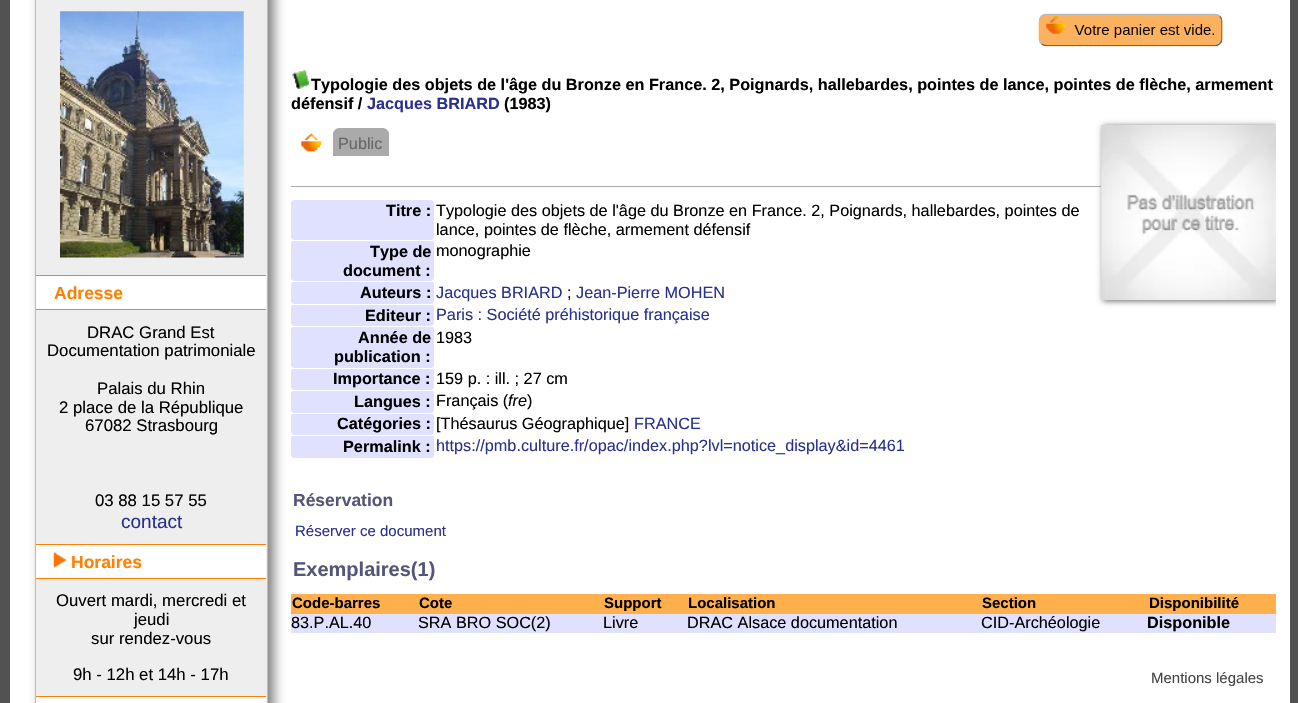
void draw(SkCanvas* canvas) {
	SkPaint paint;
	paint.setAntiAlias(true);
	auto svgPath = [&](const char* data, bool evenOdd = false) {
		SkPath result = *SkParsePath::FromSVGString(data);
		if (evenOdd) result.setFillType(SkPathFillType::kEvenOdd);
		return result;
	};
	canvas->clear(0xff525252);
	paint.setColor(0xffffffff);
	canvas->drawRect(SkRect::MakeXYWH(10, 0, 1280, 703), paint);
	paint.setColor(0xff808080);
	paint.setMaskFilter(SkMaskFilter::MakeBlur(kNormal_SkBlurStyle, 6));
	canvas->drawRoundRect(SkRect::MakeXYWH(41, -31, 233, 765), 13, 13, paint);
	paint.setMaskFilter(nullptr);
	paint.setColor(0xffeeeeee);
	canvas->drawRect(SkRect::MakeXYWH(35.5, -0.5, 232, 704), paint);
	paint.setStroke(true);
	paint.setStrokeWidth(1);
	paint.setColor(0xffbbbbbb);
	canvas->drawRect(SkRect::MakeXYWH(35.5, -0.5, 232, 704), paint);
	canvas->drawImageRect(SkImages::DeferredFromEncodedData(SkData::MakeFromFileName("img1.png")), SkRect::MakeXYWH(60, 11, 184, 247), SkSamplingOptions());
	paint.setStroke(false);
	paint.setColor(0xffffffff);
	canvas->drawRect(SkRect::MakeXYWH(36, 276, 230, 33), paint);
	paint.setColor(0xffff8103);
	canvas->drawRect(SkRect::MakeXYWH(36, 275, 230, 1), paint);
	canvas->drawRect(SkRect::MakeXYWH(36, 309, 230, 1), paint);
	SkFont f1(fontMgr->matchFamilyStyle("Liberation Sans", SkFontStyle::Bold()), 17.5);
	f1.setSubpixel(true);
	canvas->drawString("Adresse", 54, 299, f1, paint);
	SkFont f2(fontMgr->matchFamilyStyle("Liberation Sans", SkFontStyle::Normal()), 16.75);
	f2.setSubpixel(true);
	paint.setColor(0xff000000);
	canvas->drawString("DRAC Grand Est", 87, 338, f2, paint);
	canvas->drawString("Documentation patrimoniale", 47, 356, f2, paint);
	canvas->drawString("Palais du Rhin", 97, 394, f2, paint);
	canvas->drawString("2 place de la République", 59, 413, f2, paint);
	canvas->drawString("67082 Strasbourg", 85, 431, f2, paint);
	canvas->drawString("03 88 15 57 55", 95, 506, f2, paint);
	SkFont f3(fontMgr->matchFamilyStyle("Liberation Sans", SkFontStyle::Normal()), 19);
	f3.setSubpixel(true);
	paint.setColor(0xff2a308d);
	canvas->drawString("contact", 121, 528, f3, paint);
	paint.setColor(0xffffffff);
	canvas->drawRect(SkRect::MakeXYWH(36, 545, 230, 33), paint);
	paint.setColor(0xffff8103);
	canvas->drawRect(SkRect::MakeXYWH(36, 544, 230, 1), paint);
	canvas->drawRect(SkRect::MakeXYWH(36, 578, 230, 1), paint);
	canvas->drawImageRect(SkImages::DeferredFromEncodedData(SkData::MakeFromFileName("img2.png")), SkRect::MakeXYWH(53, 552, 14, 16), SkSamplingOptions());
	canvas->drawString("Horaires", 71, 568, f1, paint);
	paint.setColor(0xff000000);
	canvas->drawString("Ouvert mardi, mercredi et", 56, 606, f2, paint);
	canvas->drawString("jeudi", 134, 625, f2, paint);
	canvas->drawString("sur rendez-vous", 91, 644, f2, paint);
	canvas->drawString("9h - 12h et 14h - 17h", 73, 680, f2, paint);
	paint.setColor(0xffffffff);
	canvas->drawRect(SkRect::MakeXYWH(36, 697, 230, 6), paint);
	paint.setColor(0xffff8103);
	canvas->drawRect(SkRect::MakeXYWH(36, 696, 230, 1), paint);
	canvas->drawImageRect(SkImages::DeferredFromEncodedData(SkData::MakeFromFileName("img3.png")), SkRect::MakeXYWH(1038, 13, 185, 34), SkSamplingOptions());
	canvas->drawImageRect(SkImages::DeferredFromEncodedData(SkData::MakeFromFileName("img4.png")), SkRect::MakeXYWH(292, 70, 17, 19), SkSamplingOptions());
	SkFont f4(fontMgr->matchFamilyStyle("Liberation Sans", SkFontStyle::Bold()), 16.25);
	f4.setSubpixel(true);
	paint.setColor(0xff000000);
	canvas->drawString("Typologie des objets de l'âge du Bronze en France. 2, Poignards, hallebardes, pointes de lance, pointes de flèche, armement", 311, 90, f4, paint);
	canvas->drawString("défensif /", 291, 109, f4, paint);
	paint.setColor(0xff2a308d);
	canvas->drawString("Jacques BRIARD", 367, 109, f4, paint);
	paint.setColor(0xff000000);
	canvas->drawString("(1983)", 504, 109, f4, paint);
	paint.setColor(0xffaaaaaa);
	canvas->drawRect(SkRect::MakeXYWH(291, 186, 810, 1), paint);
	canvas->drawImageRect(SkImages::DeferredFromEncodedData(SkData::MakeFromFileName("img5.png")), SkRect::MakeXYWH(301, 133, 21, 19), SkSamplingOptions());
	canvas->drawPath(svgPath("M339 128H383C386 128 389 131 389 134V156H333V134C333 131 336 128 339 128Z"), paint);
	SkFont f5(fontMgr->matchFamilyStyle("Liberation Sans", SkFontStyle::Normal()), 16.25);
	f5.setSubpixel(true);
	paint.setColor(0xff666666);
	canvas->drawString("Public", 338, 149, f5, paint);
	paint.setColor(0xffe0e0ff);
	canvas->drawRoundRect(SkRect::MakeXYWH(291, 200, 143, 40), 4, 4, paint);
	canvas->drawRoundRect(SkRect::MakeXYWH(291, 240, 143, 41), 4, 4, paint);
	paint.setColor(0xffffffff);
	canvas->drawRect(SkRect::MakeXYWH(291, 240, 143, 1), paint);
	paint.setColor(0xff000000);
	canvas->drawString("Titre :", 386, 216, f4, paint);
	canvas->drawString("Typologie des objets de l'âge du Bronze en France. 2, Poignards, hallebardes, pointes de", 436, 216, f5, paint);
	canvas->drawString("lance, pointes de flèche, armement défensif", 436, 235, f5, paint);
	paint.setColor(0xffe0e0ff);
	canvas->drawRoundRect(SkRect::MakeXYWH(291, 281, 143, 23), 4, 4, paint);
	paint.setColor(0xffffffff);
	canvas->drawRect(SkRect::MakeXYWH(291, 281, 143, 1), paint);
	paint.setColor(0xff000000);
	canvas->drawString("Type de", 370, 257, f4, paint);
	canvas->drawString("document :", 343, 276, f4, paint);
	canvas->drawString("monographie", 436, 256, f5, paint);
	paint.setColor(0xffe0e0ff);
	canvas->drawRoundRect(SkRect::MakeXYWH(291, 304, 143, 22), 4, 4, paint);
	paint.setColor(0xffffffff);
	canvas->drawRect(SkRect::MakeXYWH(291, 304, 143, 1), paint);
	paint.setColor(0xff000000);
	canvas->drawString("Auteurs :", 360, 298, f4, paint);
	paint.setColor(0xff2a308d);
	canvas->drawString("Jacques BRIARD", 436, 298, f5, paint);
	paint.setColor(0xff000000);
	canvas->drawString(";", 567, 298, f5, paint);
	paint.setColor(0xff2a308d);
	canvas->drawString("Jean-Pierre MOHEN", 576, 298, f5, paint);
	paint.setColor(0xffe0e0ff);
	canvas->drawRoundRect(SkRect::MakeXYWH(291, 326, 143, 42), 4, 4, paint);
	paint.setColor(0xffffffff);
	canvas->drawRect(SkRect::MakeXYWH(291, 326, 143, 1), paint);
	paint.setColor(0xff000000);
	canvas->drawString("Editeur :", 365, 321, f4, paint);
	paint.setColor(0xff2a308d);
	canvas->drawString("Paris : Société préhistorique française", 436, 320, f5, paint);
	paint.setColor(0xffe0e0ff);
	canvas->drawRoundRect(SkRect::MakeXYWH(291, 368, 143, 22), 4, 4, paint);
	paint.setColor(0xffffffff);
	canvas->drawRect(SkRect::MakeXYWH(291, 368, 143, 1), paint);
	paint.setColor(0xff000000);
	canvas->drawString("Année de", 358, 343, f4, paint);
	canvas->drawString("publication :", 334, 362, f4, paint);
	canvas->drawString("1983", 436, 343, f5, paint);
	paint.setColor(0xffe0e0ff);
	canvas->drawRoundRect(SkRect::MakeXYWH(291, 390, 143, 23), 4, 4, paint);
	paint.setColor(0xffffffff);
	canvas->drawRect(SkRect::MakeXYWH(291, 390, 143, 1), paint);
	paint.setColor(0xff000000);
	canvas->drawString("Importance :", 333, 384, f4, paint);
	canvas->drawString("159 p. : ill. ; 27 cm", 436, 384, f5, paint);
	paint.setColor(0xffe0e0ff);
	canvas->drawRoundRect(SkRect::MakeXYWH(291, 413, 143, 22), 4, 4, paint);
	paint.setColor(0xffffffff);
	canvas->drawRect(SkRect::MakeXYWH(291, 413, 143, 1), paint);
	paint.setColor(0xff000000);
	canvas->drawString("Langues :", 354, 407, f4, paint);
	canvas->drawString("Français (", 436, 406, f5, paint);
	SkFont f6(fontMgr->matchFamilyStyle("Liberation Sans", SkFontStyle::Italic()), 16.25);
	f6.setSubpixel(true);
	canvas->drawString("fre", 508, 406, f6, paint);
	canvas->drawString(")", 527, 406, f5, paint);
	paint.setColor(0xffe0e0ff);
	canvas->drawRoundRect(SkRect::MakeXYWH(291, 435, 143, 23), 4, 4, paint);
	paint.setColor(0xffffffff);
	canvas->drawRect(SkRect::MakeXYWH(291, 435, 143, 1), paint);
	paint.setColor(0xff000000);
	canvas->drawString("Catégories :", 337, 429, f4, paint);
	canvas->drawString("[Thésaurus Géographique]", 436, 429, f5, paint);
	paint.setColor(0xff2a308d);
	canvas->drawString("FRANCE", 634, 429, f5, paint);
	paint.setColor(0xff000000);
	canvas->drawString("Permalink :", 343, 452, f4, paint);
	paint.setColor(0xff2a308d);
	canvas->drawString("https://pmb.culture.fr/opac/index.php?lvl=notice_display&id=4461", 436, 451, f5, paint);
	canvas->save();
	canvas->clipPath(svgPath("M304-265H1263C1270-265 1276-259 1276-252V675C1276 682 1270 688 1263 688H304C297 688 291 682 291 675V-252C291-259 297-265 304-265Z"), true);
	paint.setColor(0xff666666);
	paint.setMaskFilter(SkMaskFilter::MakeBlur(kNormal_SkBlurStyle, 3));
	canvas->drawRect(SkRect::MakeXYWH(1103, 126, 175, 175), paint);
	paint.setMaskFilter(nullptr);
	canvas->restore();
	canvas->drawImageRect(SkImages::DeferredFromEncodedData(SkData::MakeFromFileName("img6.png")), SkRect::MakeXYWH(1101, 125, 175, 175), SkSamplingOptions());
	paint.setColor(0xff555577);
	canvas->drawString("Réservation", 293, 506, f1, paint);
	SkFont f7(fontMgr->matchFamilyStyle("Liberation Sans", SkFontStyle::Normal()), 15);
	f7.setSubpixel(true);
	paint.setColor(0xff2a308d);
	canvas->drawString("Réserver ce document", 295, 536, f7, paint);
	SkFont f8(fontMgr->matchFamilyStyle("Liberation Sans", SkFontStyle::Bold()), 20);
	f8.setSubpixel(true);
	paint.setColor(0xff555577);
	canvas->drawString("Exemplaires(1)", 293, 576, f8, paint);
	paint.setColor(0xffffaf4c);
	canvas->drawRect(SkRect::MakeXYWH(291, 594, 985, 20), paint);
	SkFont f9(fontMgr->matchFamilyStyle("Liberation Sans", SkFontStyle::Bold()), 15);
	f9.setSubpixel(true);
	paint.setColor(0xff000000);
	canvas->drawString("Code-barres", 292, 608, f9, paint);
	canvas->drawString("Cote", 419, 608, f9, paint);
	canvas->drawString("Support", 604, 608, f9, paint);
	canvas->drawString("Localisation", 688, 608, f9, paint);
	canvas->drawString("Section", 982, 608, f9, paint);
	canvas->drawString("Disponibilité", 1149, 608, f9, paint);
	paint.setColor(0xffe0e0ff);
	canvas->drawRect(SkRect::MakeXYWH(291, 614, 985, 19), paint);
	paint.setColor(0xff000000);
	canvas->drawString("83.P.AL.40", 291, 628, f5, paint);
	canvas->drawString("SRA BRO SOC(2)", 418, 628, f5, paint);
	canvas->drawString("Livre", 603, 628, f5, paint);
	canvas->drawString("DRAC Alsace documentation", 687, 628, f5, paint);
	canvas->drawString("CID-Archéologie", 981, 628, f5, paint);
	canvas->drawString("Disponible", 1147, 628, f4, paint);
	paint.setColor(0xff444444);
	canvas->drawString("Mentions légales", 1151, 683, f7, paint);
}
